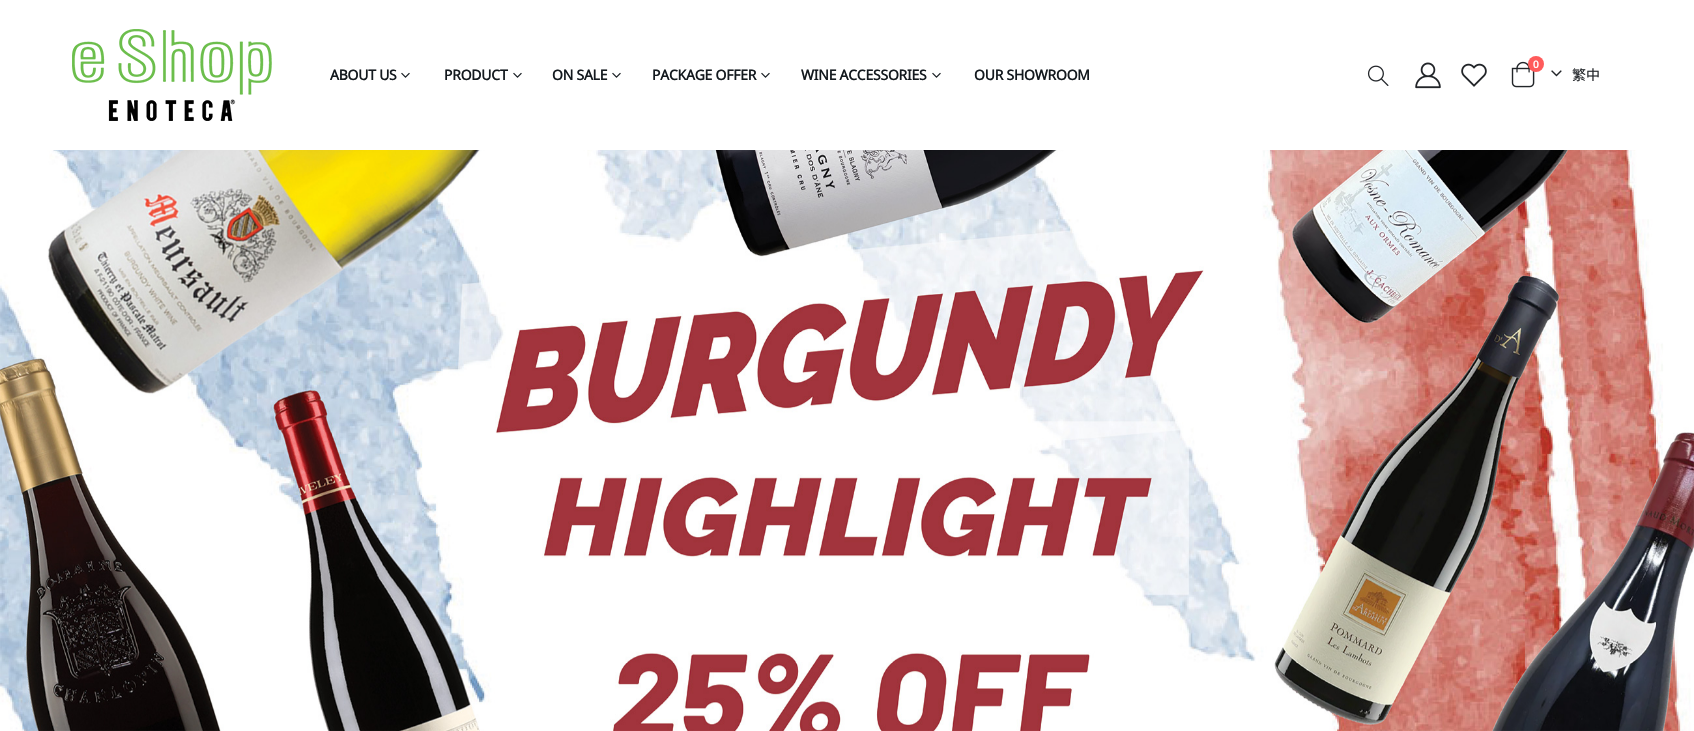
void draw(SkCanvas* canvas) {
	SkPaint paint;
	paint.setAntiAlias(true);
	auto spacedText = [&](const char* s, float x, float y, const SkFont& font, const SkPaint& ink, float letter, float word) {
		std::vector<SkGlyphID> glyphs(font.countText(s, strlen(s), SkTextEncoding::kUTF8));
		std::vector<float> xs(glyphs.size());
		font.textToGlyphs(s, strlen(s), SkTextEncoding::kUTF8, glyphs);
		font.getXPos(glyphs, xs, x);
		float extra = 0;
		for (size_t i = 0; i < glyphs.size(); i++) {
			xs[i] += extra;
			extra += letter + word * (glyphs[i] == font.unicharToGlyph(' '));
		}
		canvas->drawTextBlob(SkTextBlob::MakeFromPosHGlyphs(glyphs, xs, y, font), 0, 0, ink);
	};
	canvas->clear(0xffffffff);
	canvas->drawImageRect(SkImages::DeferredFromEncodedData(SkData::MakeFromFileName("img1.png")), SkRect::MakeXYWH(72, 29, 200, 92), SkSamplingOptions());
	SkFont f1(fontMgr->matchFamilyStyle("Noto Sans", SkFontStyle::Bold()), 14);
	f1.setSubpixel(true);
	paint.setColor(0xff141a1f);
	spacedText("ABOUT US", 330, 80, f1, paint, -0.25, 0);
	canvas->drawImageRect(SkImages::DeferredFromEncodedData(SkData::MakeFromFileName("img2.png")), SkRect::MakeXYWH(401, 72, 9, 6), SkSamplingOptions());
	spacedText("PRODUCT", 444, 80, f1, paint, -0.25, 0);
	canvas->drawImageRect(SkImages::DeferredFromEncodedData(SkData::MakeFromFileName("img2.png")), SkRect::MakeXYWH(513, 72, 9, 6), SkSamplingOptions());
	spacedText("ON SALE", 552, 80, f1, paint, -0.25, 0);
	canvas->drawImageRect(SkImages::DeferredFromEncodedData(SkData::MakeFromFileName("img2.png")), SkRect::MakeXYWH(612, 72, 9, 6), SkSamplingOptions());
	spacedText("PACKAGE OFFER", 652, 80, f1, paint, -0.25, 0);
	canvas->drawImageRect(SkImages::DeferredFromEncodedData(SkData::MakeFromFileName("img2.png")), SkRect::MakeXYWH(761, 72, 9, 6), SkSamplingOptions());
	spacedText("WINE ACCESSORIES", 801, 80, f1, paint, -0.25, 0);
	canvas->drawImageRect(SkImages::DeferredFromEncodedData(SkData::MakeFromFileName("img2.png")), SkRect::MakeXYWH(932, 72, 9, 6), SkSamplingOptions());
	spacedText("OUR SHOWROOM", 974, 80, f1, paint, -0.25, 0);
	canvas->drawImageRect(SkImages::DeferredFromEncodedData(SkData::MakeFromFileName("img3.png")), SkRect::MakeXYWH(1367, 65, 22, 21), SkSamplingOptions());
	canvas->drawImageRect(SkImages::DeferredFromEncodedData(SkData::MakeFromFileName("img4.png")), SkRect::MakeXYWH(1415, 62, 26, 27), SkSamplingOptions());
	canvas->drawImageRect(SkImages::DeferredFromEncodedData(SkData::MakeFromFileName("img5.png")), SkRect::MakeXYWH(1461, 63, 26, 24), SkSamplingOptions());
	canvas->drawImageRect(SkImages::DeferredFromEncodedData(SkData::MakeFromFileName("img6.png")), SkRect::MakeXYWH(1511, 61, 24, 27), SkSamplingOptions());
	paint.setColor(0xffff5b5b);
	canvas->drawCircle(1536, 64, 8, paint);
	SkFont f2(fontMgr->matchFamilyStyle("Noto Sans", SkFontStyle::Bold()), 10);
	f2.setSubpixel(true);
	paint.setColor(0xffffffff);
	canvas->drawString("0", 1533, 68, f2, paint);
	canvas->drawImageRect(SkImages::DeferredFromEncodedData(SkData::MakeFromFileName("img7.png")), SkRect::MakeXYWH(1551, 70, 11, 7), SkSamplingOptions());
	SkFont f3(fontMgr->matchFamilyStyle("Noto Sans TC", SkFontStyle(100, SkFontStyle::kNormal_Width, SkFontStyle::kUpright_Slant)), 14);
	f3.setSubpixel(true);
	paint.setColor(0xff222529);
	canvas->drawString("繁中", 1572, 80, f3, paint);
	canvas->drawImageRect(SkImages::DeferredFromEncodedData(SkData::MakeFromFileName("img8.png")), SkRect::MakeXYWH(0, 150, 1694, 581), SkSamplingOptions());
}
